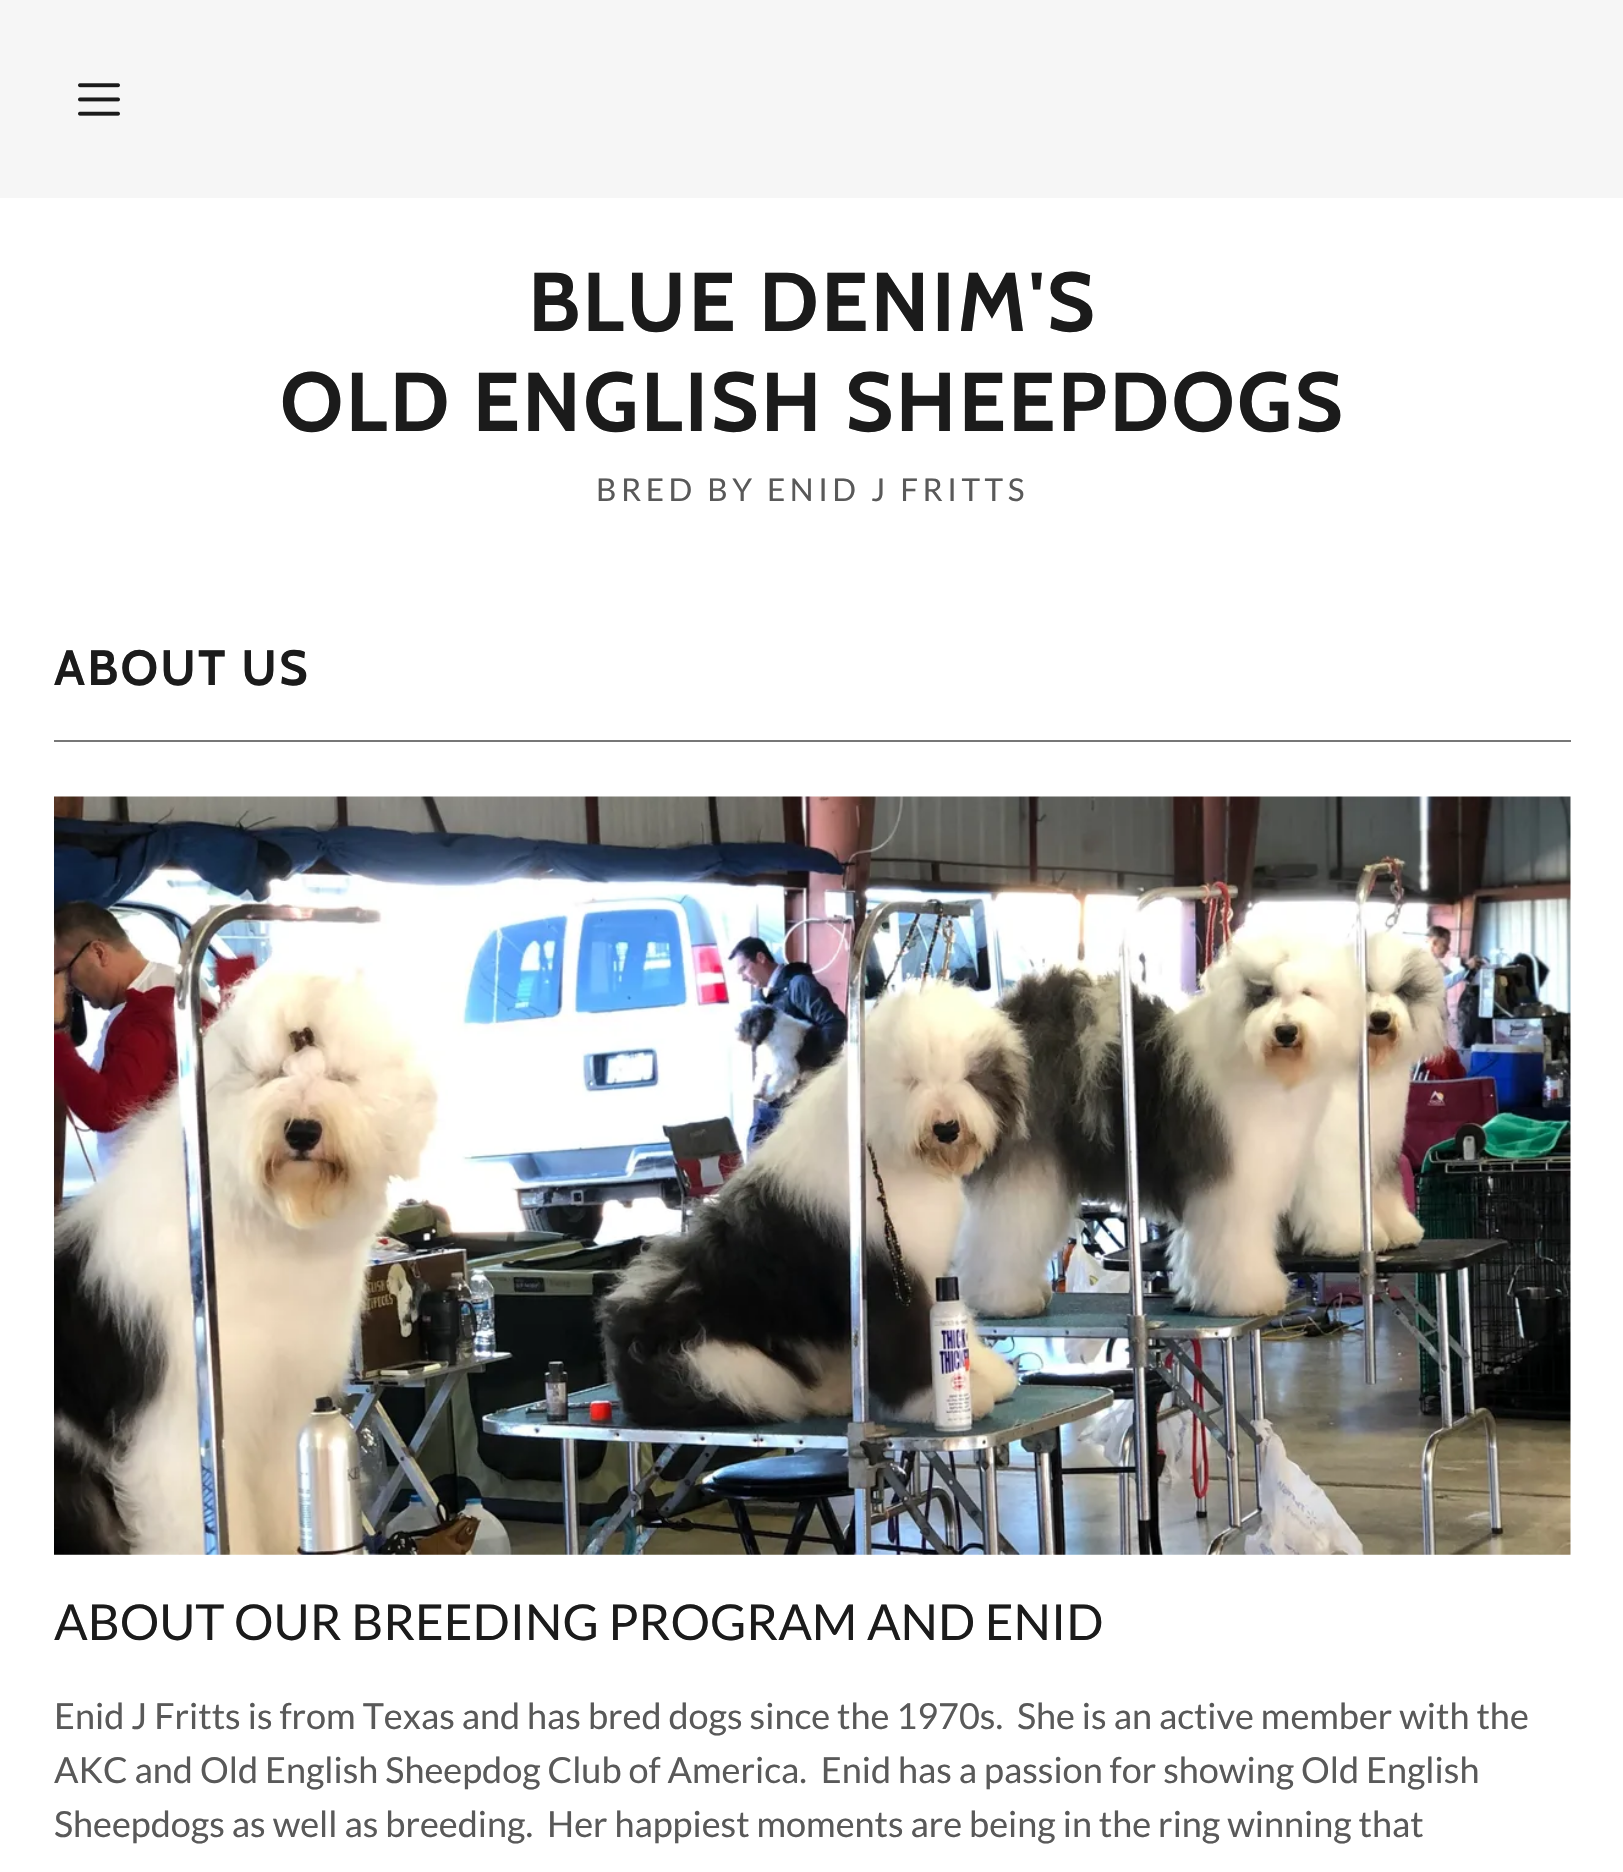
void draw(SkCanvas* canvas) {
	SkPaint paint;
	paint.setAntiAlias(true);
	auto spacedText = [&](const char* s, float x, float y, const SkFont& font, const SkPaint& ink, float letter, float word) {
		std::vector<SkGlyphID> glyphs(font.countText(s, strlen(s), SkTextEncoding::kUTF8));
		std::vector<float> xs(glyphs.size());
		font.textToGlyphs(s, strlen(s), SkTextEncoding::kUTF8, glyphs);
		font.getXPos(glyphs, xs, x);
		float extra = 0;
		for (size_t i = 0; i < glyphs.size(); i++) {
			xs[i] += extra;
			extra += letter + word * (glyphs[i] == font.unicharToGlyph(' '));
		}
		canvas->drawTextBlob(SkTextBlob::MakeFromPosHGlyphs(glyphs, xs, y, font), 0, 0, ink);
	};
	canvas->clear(0xffffffff);
	paint.setColor(0xfff6f6f6);
	canvas->drawRect(SkRect::MakeXYWH(0, 0, 1623, 198), paint);
	canvas->drawImageRect(SkImages::DeferredFromEncodedData(SkData::MakeFromFileName("img1.png")), SkRect::MakeXYWH(78, 83, 42, 33), SkSamplingOptions());
	SkFont f1(fontMgr->matchFamilyStyle("Cabin", SkFontStyle::Bold()), 83.25);
	f1.setSubpixel(true);
	paint.setColor(0xff1b1b1b);
	spacedText("BLUE DENIM'S", 528, 331, f1, paint, 2.25, 0);
	spacedText("OLD ENGLISH SHEEPDOGS", 280, 431, f1, paint, 2.25, 0);
	SkFont f2(fontMgr->matchFamilyStyle("Lato", SkFontStyle::Normal()), 31.5);
	f2.setSubpixel(true);
	paint.setColor(0xff595959);
	spacedText("BRED BY ENID J FRITTS", 596, 501, f2, paint, 4.5, 0);
	SkFont f3(fontMgr->matchFamilyStyle("Cabin", SkFontStyle::Bold()), 49.5);
	f3.setSubpixel(true);
	paint.setColor(0xff1b1b1b);
	spacedText("ABOUT US", 54, 685, f3, paint, 2.25, 0);
	paint.setColor(0xff777777);
	canvas->drawRect(SkRect::MakeXYWH(54, 740, 1517, 2), paint);
	canvas->drawImageRect(SkImages::DeferredFromEncodedData(SkData::MakeFromFileName("img2.png")), SkRect::MakeXYWH(54, 796, 1517, 759), SkSamplingOptions());
	SkFont f4(fontMgr->matchFamilyStyle("Lato", SkFontStyle::Normal()), 49.5);
	f4.setSubpixel(true);
	paint.setColor(0xff1b1b1b);
	canvas->drawString("ABOUT OUR BREEDING PROGRAM AND ENID", 54, 1640, f4, paint);
	SkFont f5(fontMgr->matchFamilyStyle("Lato", SkFontStyle::Normal()), 36);
	f5.setSubpixel(true);
	paint.setColor(0xff595959);
	canvas->drawString("Enid J Fritts is from Texas and has bred dogs since the 1970s.  She is an active member with the", 54, 1729, f5, paint);
	canvas->drawString("AKC and Old English Sheepdog Club of America.  Enid has a passion for showing Old English", 54, 1783, f5, paint);
	canvas->drawString("Sheepdogs as well as breeding.  Her happiest moments are being in the ring winning that", 54, 1837, f5, paint);
}
